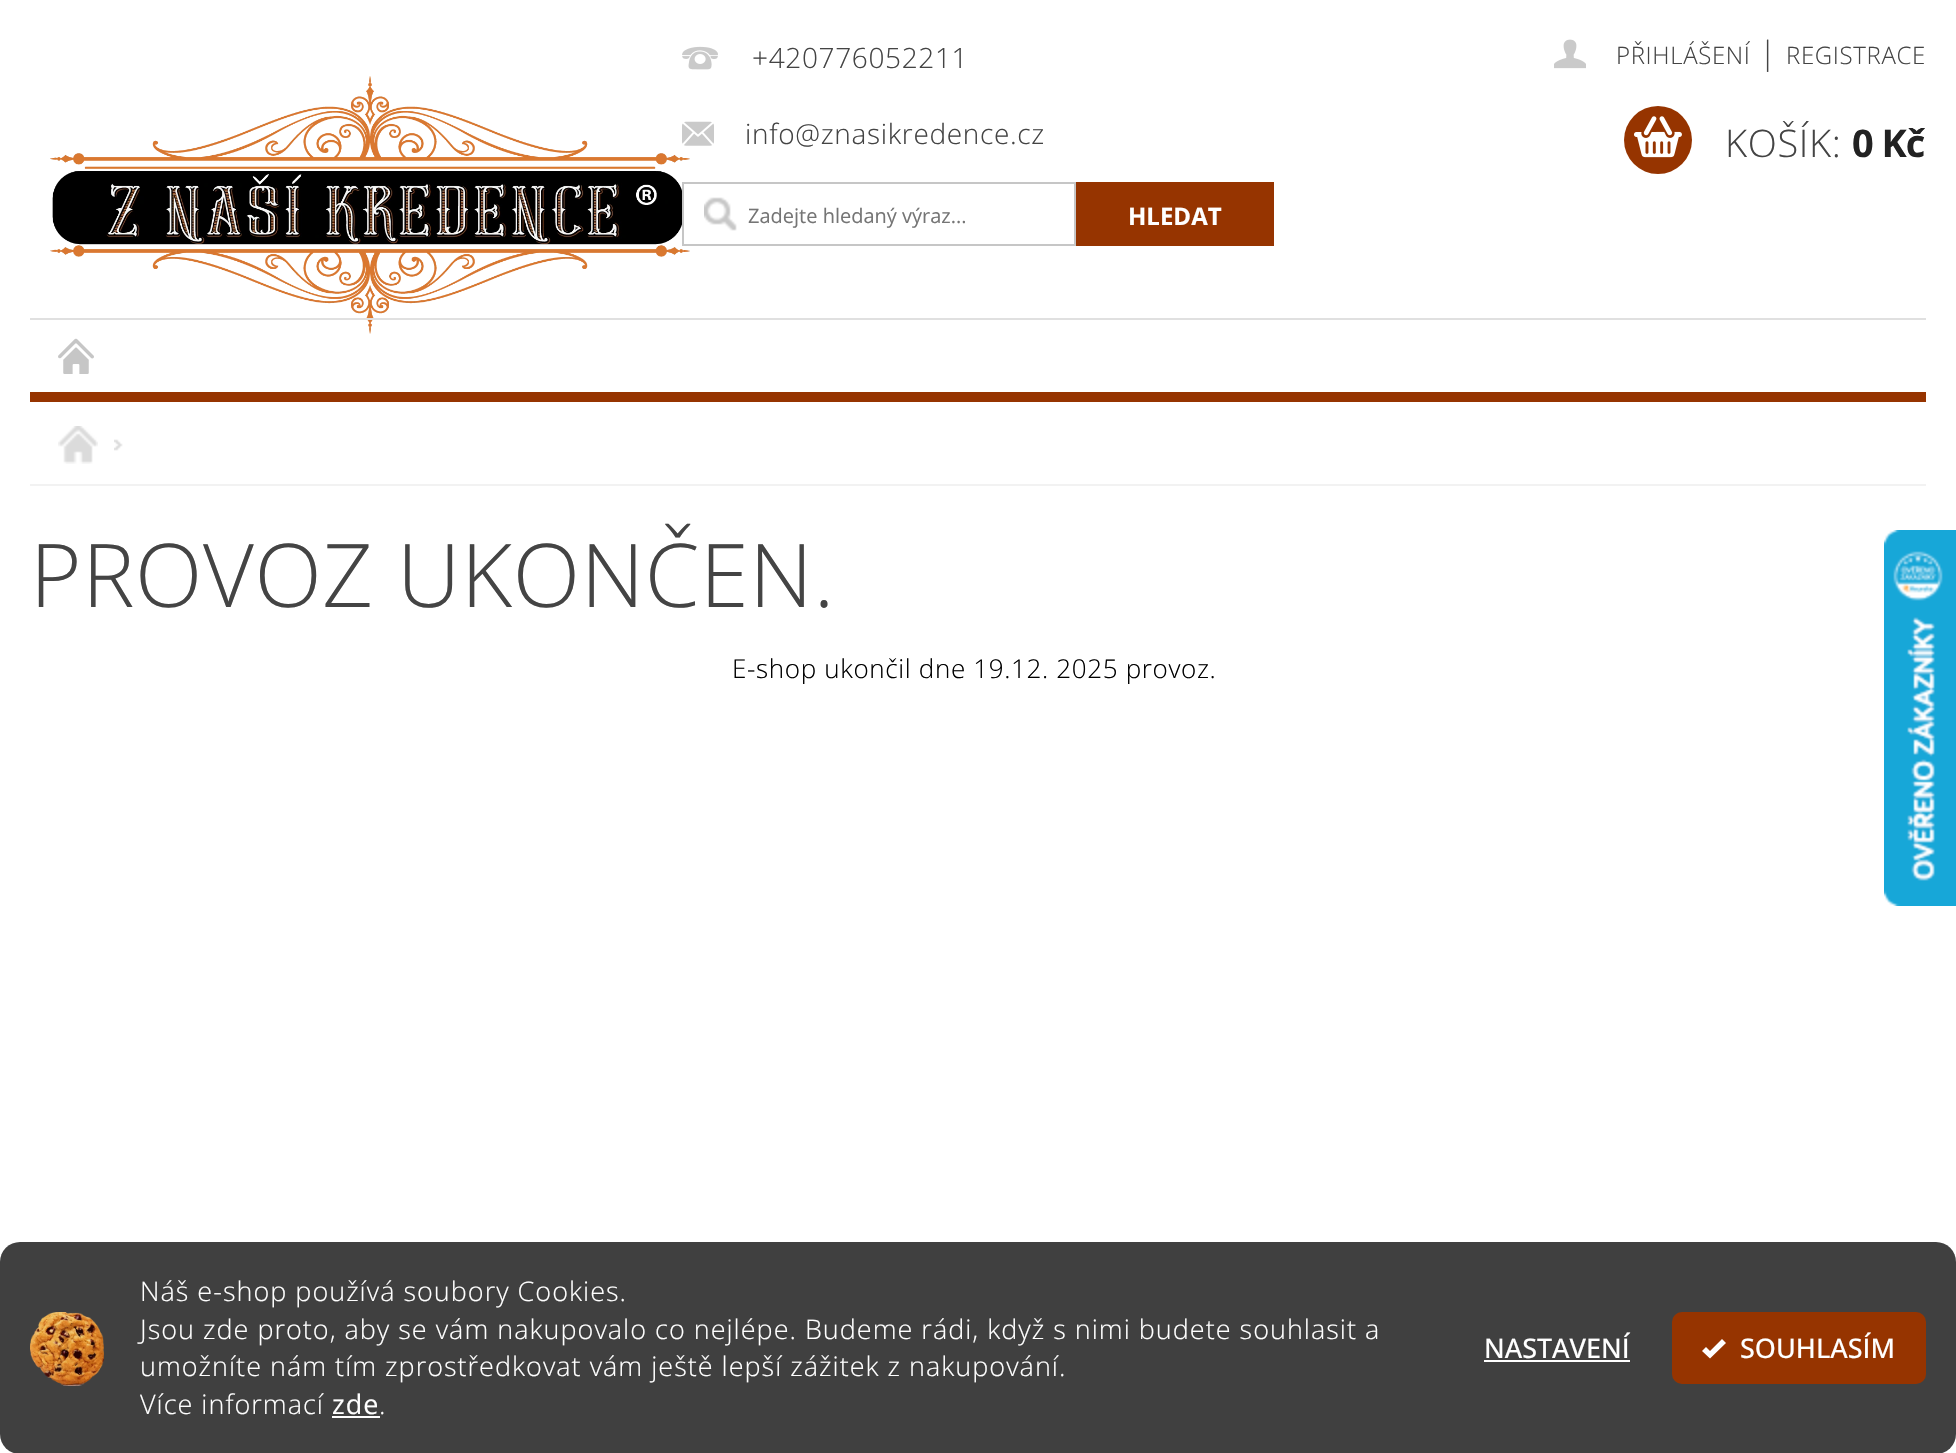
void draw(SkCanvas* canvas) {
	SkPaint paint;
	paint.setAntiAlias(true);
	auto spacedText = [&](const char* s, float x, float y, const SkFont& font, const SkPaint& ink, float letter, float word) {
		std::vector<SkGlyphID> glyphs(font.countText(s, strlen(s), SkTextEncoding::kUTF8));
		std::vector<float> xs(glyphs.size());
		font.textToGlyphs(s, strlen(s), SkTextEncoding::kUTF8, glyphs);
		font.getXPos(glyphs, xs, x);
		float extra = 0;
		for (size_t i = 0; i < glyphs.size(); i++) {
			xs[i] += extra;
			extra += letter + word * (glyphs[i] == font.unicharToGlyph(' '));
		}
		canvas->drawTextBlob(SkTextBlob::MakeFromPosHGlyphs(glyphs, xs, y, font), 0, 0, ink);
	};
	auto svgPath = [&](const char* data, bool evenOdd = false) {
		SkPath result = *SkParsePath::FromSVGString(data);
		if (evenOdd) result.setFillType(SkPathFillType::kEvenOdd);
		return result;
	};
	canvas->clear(0xffffffff);
	paint.setColor(0xff963400);
	canvas->drawRect(SkRect::MakeXYWH(30, 392, 1896, 10), paint);
	canvas->drawImageRect(SkImages::DeferredFromEncodedData(SkData::MakeFromFileName("img1.png")), SkRect::MakeXYWH(50, 76, 640, 258), SkSamplingOptions());
	canvas->drawImageRect(SkImages::DeferredFromEncodedData(SkData::MakeFromFileName("img2.png")), SkRect::MakeXYWH(682, 46, 36, 24), SkSamplingOptions());
	SkFont f1(fontMgr->matchFamilyStyle("Open Sans", SkFontStyle(300, SkFontStyle::kNormal_Width, SkFontStyle::kUpright_Slant)), 28);
	f1.setSubpixel(true);
	paint.setColor(0xff444444);
	spacedText("+420776052211", 752, 68, f1, paint, 0.65, 0);
	canvas->drawImageRect(SkImages::DeferredFromEncodedData(SkData::MakeFromFileName("img3.png")), SkRect::MakeXYWH(682, 121, 32, 25), SkSamplingOptions());
	spacedText("info@znasikredence.cz", 745, 144, f1, paint, 0.65, 0);
	canvas->drawImageRect(SkImages::DeferredFromEncodedData(SkData::MakeFromFileName("img4.png")), SkRect::MakeXYWH(704, 197, 33, 34), SkSamplingOptions());
	paint.setStroke(true);
	paint.setStrokeWidth(2);
	paint.setColor(0xffc6c6c6);
	canvas->drawRect(SkRect::MakeXYWH(683, 183, 392, 62), paint);
	SkFont f2(fontMgr->matchFamilyStyle("Open Sans", SkFontStyle::Normal()), 20);
	f2.setSubpixel(true);
	paint.setStroke(false);
	paint.setColor(0xff757575);
	canvas->drawString("Zadejte hledaný výraz...", 748, 223, f2, paint);
	paint.setColor(0xff963400);
	canvas->drawRect(SkRect::MakeXYWH(1076, 182, 198, 64), paint);
	SkFont f3(fontMgr->matchFamilyStyle("Open Sans", SkFontStyle::Bold()), 24);
	f3.setSubpixel(true);
	paint.setColor(0xffffffff);
	canvas->drawString("HLEDAT", 1128, 225, f3, paint);
	canvas->drawImageRect(SkImages::DeferredFromEncodedData(SkData::MakeFromFileName("img5.png")), SkRect::MakeXYWH(1554, 39, 32, 30), SkSamplingOptions());
	SkFont f4(fontMgr->matchFamilyStyle("Open Sans", SkFontStyle(300, SkFontStyle::kNormal_Width, SkFontStyle::kUpright_Slant)), 24);
	f4.setSubpixel(true);
	paint.setColor(0xff444444);
	spacedText("PŘIHLÁŠENÍ", 1616, 64, f4, paint, 0.65, 0);
	SkFont f5(fontMgr->matchFamilyStyle("Open Sans", SkFontStyle(300, SkFontStyle::kNormal_Width, SkFontStyle::kUpright_Slant)), 32);
	f5.setSubpixel(true);
	spacedText("|", 1759, 64, f5, paint, 0.65, 0);
	spacedText("REGISTRACE", 1786, 64, f4, paint, 0.65, 0);
	paint.setColor(0xff963400);
	canvas->drawCircle(1658, 140, 34, paint);
	canvas->drawImageRect(SkImages::DeferredFromEncodedData(SkData::MakeFromFileName("img6.png")), SkRect::MakeXYWH(1634, 116, 48, 42), SkSamplingOptions());
	SkFont f6(fontMgr->matchFamilyStyle("Open Sans", SkFontStyle(300, SkFontStyle::kNormal_Width, SkFontStyle::kUpright_Slant)), 38);
	f6.setSubpixel(true);
	paint.setColor(0xff444444);
	spacedText("KOŠÍK:", 1725, 157, f6, paint, 0.65, 0);
	SkFont f7(fontMgr->matchFamilyStyle("Open Sans", SkFontStyle::Bold()), 38);
	f7.setSubpixel(true);
	paint.setColor(0xff222222);
	spacedText("0 Kč", 1852, 157, f7, paint, -1, 0);
	paint.setColor(0xffe0e0e0);
	canvas->drawRect(SkRect::MakeXYWH(30, 318, 1896, 2), paint);
	canvas->drawImageRect(SkImages::DeferredFromEncodedData(SkData::MakeFromFileName("img7.png")), SkRect::MakeXYWH(58, 338, 36, 36), SkSamplingOptions());
	paint.setColor(0xfff2f2f2);
	canvas->drawRect(SkRect::MakeXYWH(30, 484, 1896, 2), paint);
	canvas->drawImageRect(SkImages::DeferredFromEncodedData(SkData::MakeFromFileName("img8.png")), SkRect::MakeXYWH(58, 426, 40, 38), SkSamplingOptions());
	canvas->drawImageRect(SkImages::DeferredFromEncodedData(SkData::MakeFromFileName("img9.png")), SkRect::MakeXYWH(114, 439, 9, 12), SkSamplingOptions());
	SkFont f8(fontMgr->matchFamilyStyle("Open Sans", SkFontStyle(300, SkFontStyle::kNormal_Width, SkFontStyle::kUpright_Slant)), 88);
	f8.setSubpixel(true);
	paint.setColor(0xff444444);
	spacedText("PROVOZ UKONČEN.", 30, 607, f8, paint, 0.65, 0);
	SkFont f9(fontMgr->matchFamilyStyle("Open Sans", SkFontStyle(300, SkFontStyle::kNormal_Width, SkFontStyle::kUpright_Slant)), 26);
	f9.setSubpixel(true);
	paint.setColor(0xff000000);
	spacedText("E-shop ukončil dne 19.12. 2025 provoz.", 732, 678, f9, paint, 0.65, 0);
	canvas->drawImageRect(SkImages::DeferredFromEncodedData(SkData::MakeFromFileName("img10.png")), SkRect::MakeXYWH(1884, 530, 72, 376), SkSamplingOptions());
	paint.setColor(0xff404040);
	canvas->drawRoundRect(SkRect::MakeXYWH(0, 1242, 1956, 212), 20, 20, paint);
	canvas->drawImageRect(SkImages::DeferredFromEncodedData(SkData::MakeFromFileName("img11.png")), SkRect::MakeXYWH(30, 1312, 74, 74), SkSamplingOptions());
	SkFont f10(fontMgr->matchFamilyStyle("Open Sans", SkFontStyle(300, SkFontStyle::kNormal_Width, SkFontStyle::kUpright_Slant)), 27);
	f10.setSubpixel(true);
	paint.setColor(0xffffffff);
	spacedText("Náš e-shop používá soubory Cookies.", 140, 1301, f10, paint, 1, 0);
	spacedText("Jsou zde proto, aby se vám nakupovalo co nejlépe. Budeme rádi, když s nimi budete souhlasit a", 140, 1339, f10, paint, 1, 0);
	spacedText("umožníte nám tím zprostředkovat vám ještě lepší zážitek z nakupování.", 140, 1376, f10, paint, 1, 0);
	spacedText("Více informací", 140, 1414, f10, paint, 1, 0);
	SkFont f11(fontMgr->matchFamilyStyle("Open Sans", SkFontStyle::Normal()), 27);
	f11.setSubpixel(true);
	spacedText("zde", 332, 1414, f11, paint, 1, 0);
	canvas->drawRect(SkRect::MakeXYWH(332, 1416, 48, 2), paint);
	spacedText(".", 379, 1414, f10, paint, 1, 0);
	SkFont f12(fontMgr->matchFamilyStyle("Open Sans", SkFontStyle(500, SkFontStyle::kNormal_Width, SkFontStyle::kUpright_Slant)), 27);
	f12.setSubpixel(true);
	canvas->drawString("NASTAVENÍ", 1484, 1358, f12, paint);
	canvas->drawRect(SkRect::MakeXYWH(1484, 1360, 146, 2), paint);
	paint.setColor(0xff963400);
	canvas->drawRoundRect(SkRect::MakeXYWH(1673, 1313, 252, 70), 9, 9, paint);
	paint.setStroke(true);
	canvas->drawRoundRect(SkRect::MakeXYWH(1673, 1313, 252, 70), 9, 9, paint);
	paint.setStroke(false);
	paint.setColor(0xffffffff);
	canvas->drawPath(svgPath("M1722 1339L1710 1351L1706 1347L1702 1351L1710 1358.5L1726 1343Z"), paint);
	canvas->drawString("SOUHLASÍM", 1740, 1358, f12, paint);
}
